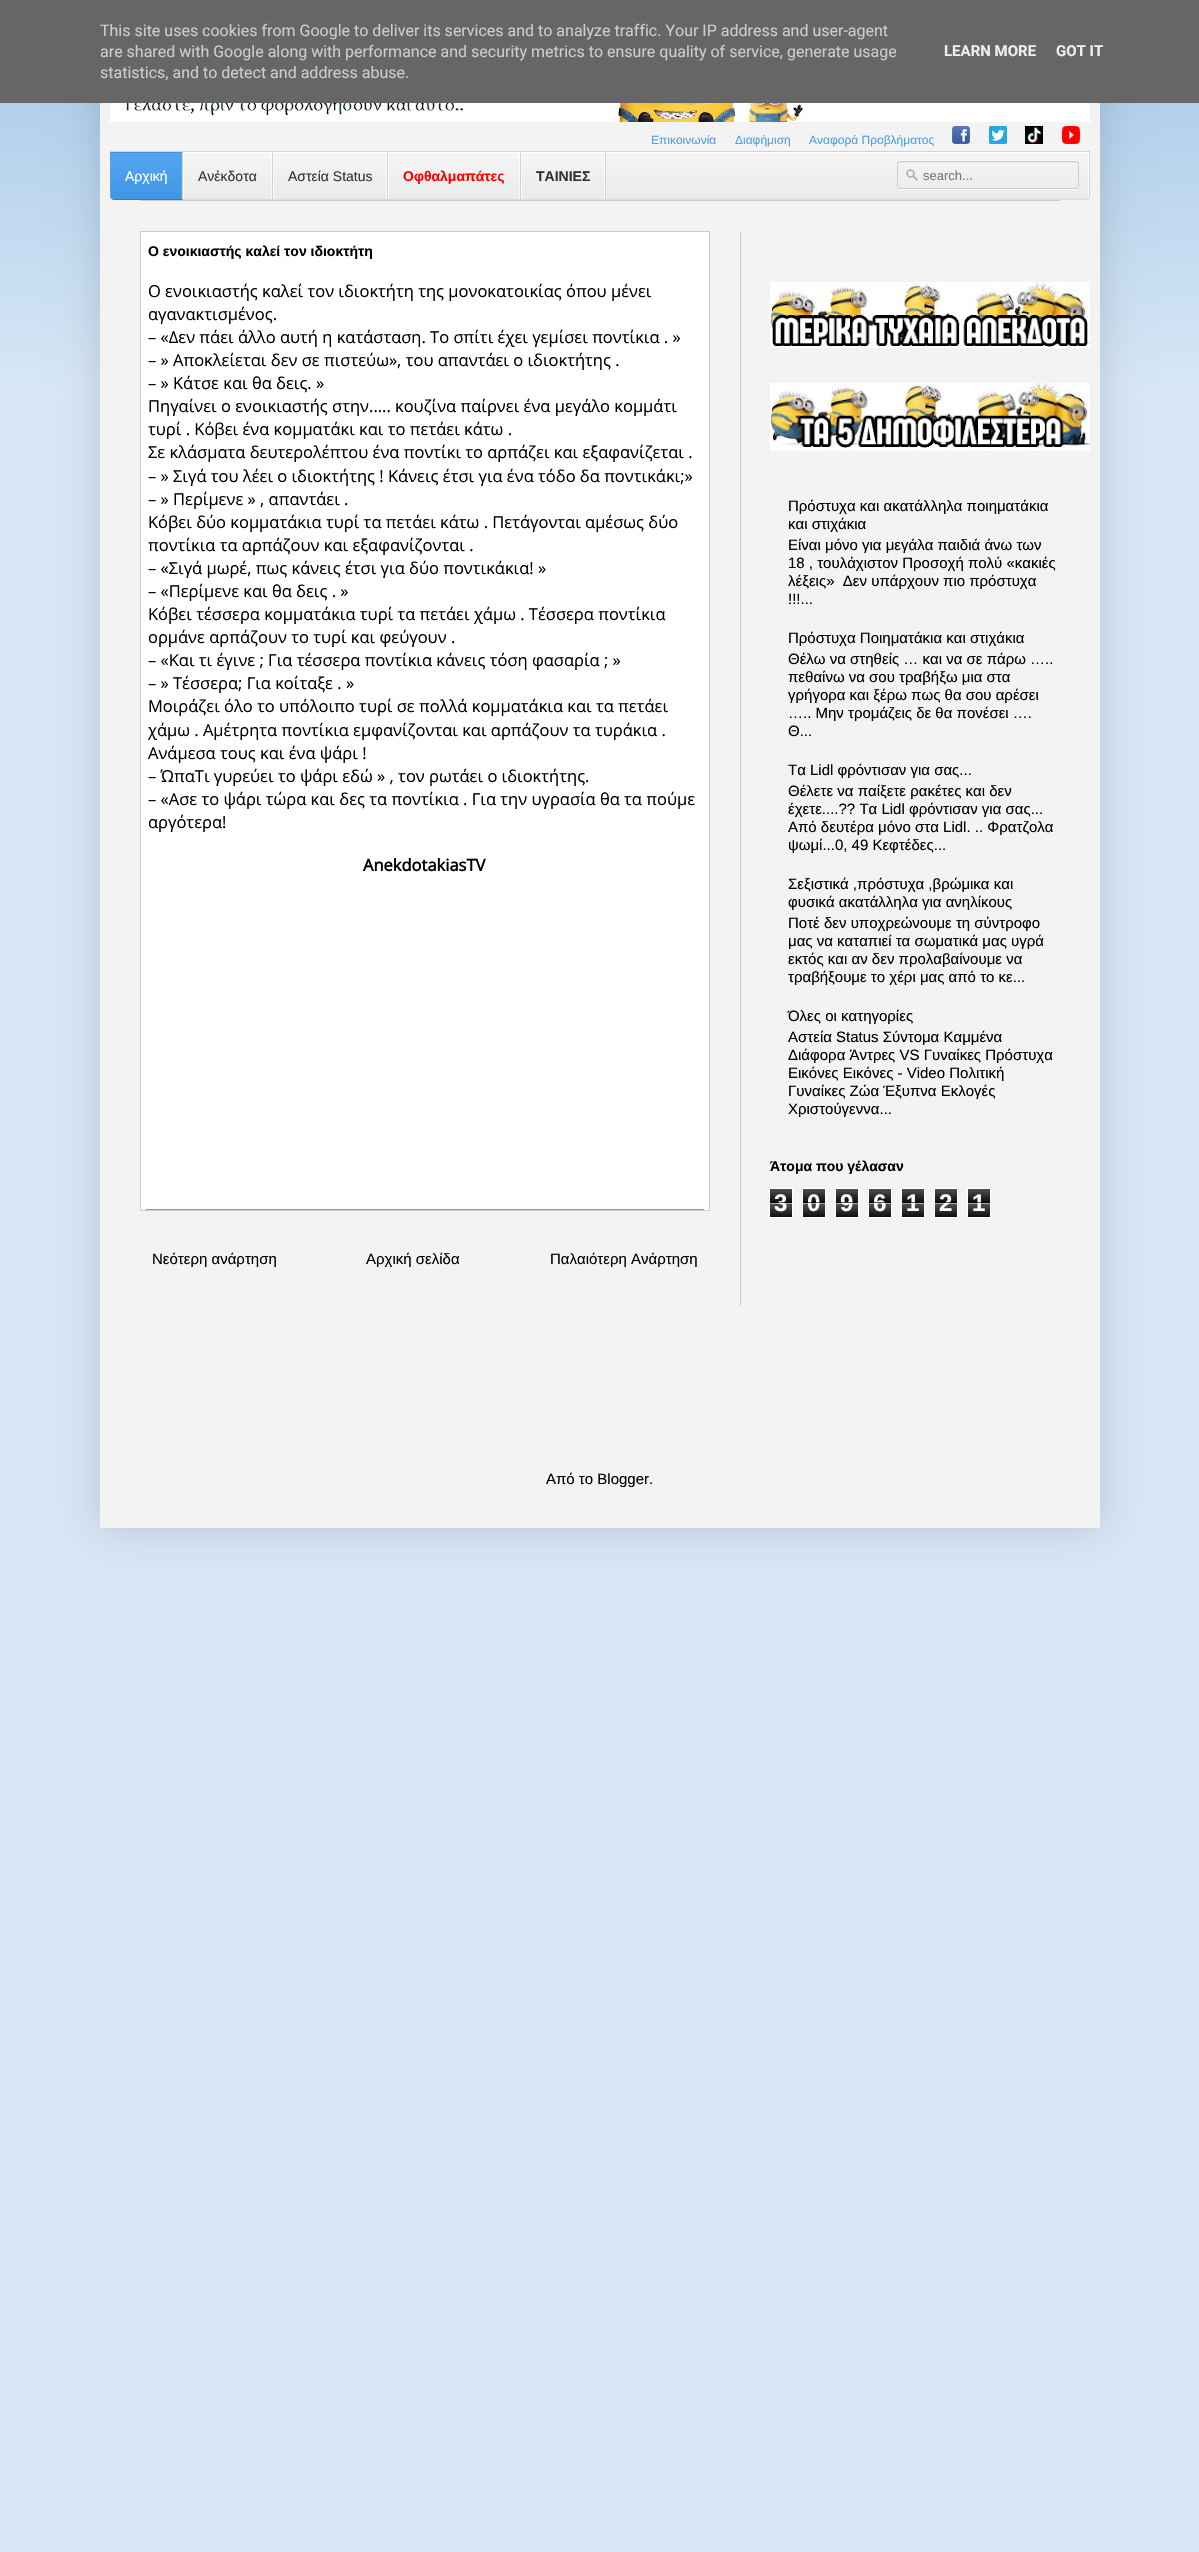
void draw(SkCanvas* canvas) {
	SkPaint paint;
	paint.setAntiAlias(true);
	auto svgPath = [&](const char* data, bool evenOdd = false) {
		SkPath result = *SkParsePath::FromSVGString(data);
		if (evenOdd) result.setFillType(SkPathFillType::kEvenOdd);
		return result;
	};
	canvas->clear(0xffd9e6f6);
	paint.setColor(0xff9fc5e8);
	canvas->drawRect(SkRect::MakeXYWH(0, 103, 1199, 297), paint);
	canvas->drawImageRect(SkImages::DeferredFromEncodedData(SkData::MakeFromFileName("img1.png")), SkRect::MakeXYWH(0, 103, 1199, 297), SkSamplingOptions());
	paint.setColor(0x26000000);
	paint.setMaskFilter(SkMaskFilter::MakeBlur(kNormal_SkBlurStyle, 20));
	canvas->drawRect(SkRect::MakeXYWH(100, 30, 1000, 1498), paint);
	paint.setMaskFilter(nullptr);
	paint.setColor(0xff666666);
	canvas->drawRect(SkRect::MakeXYWH(0, 0, 1199, 103), paint);
	SkFont f1(fontMgr->matchFamilyStyle("Roboto", SkFontStyle::Normal()), 16);
	f1.setSubpixel(true);
	paint.setColor(0xffcccccc);
	canvas->drawString("This site uses cookies from Google to deliver its services and to analyze traffic. Your IP address and user-agent", 100, 36, f1, paint);
	canvas->drawString("are shared with Google along with performance and security metrics to ensure quality of service, generate usage", 100, 57, f1, paint);
	canvas->drawString("statistics, and to detect and address abuse.", 100, 78, f1, paint);
	SkFont f2(fontMgr->matchFamilyStyle("Roboto", SkFontStyle::Bold()), 15);
	f2.setSubpixel(true);
	paint.setColor(0xffeeeeee);
	canvas->drawString("LEARN MORE", 944, 56, f2, paint);
	canvas->drawString("GOT IT", 1056, 56, f2, paint);
	paint.setColor(0xfff3f3f3);
	canvas->drawRect(SkRect::MakeXYWH(100, 103, 1000, 1425), paint);
	paint.setColor(0xffffffff);
	canvas->drawRect(SkRect::MakeXYWH(110, 103, 980, 19), paint);
	canvas->drawImageRect(SkImages::DeferredFromEncodedData(SkData::MakeFromFileName("img2.png")), SkRect::MakeXYWH(125, 103, 679, 19), SkSamplingOptions());
	SkFont f3(fontMgr->matchFamilyStyle("Liberation Sans", SkFontStyle::Normal()), 12);
	f3.setSubpixel(true);
	paint.setColor(0xff4c9feb);
	canvas->drawString("Επικοινωνία", 651, 144, f3, paint);
	canvas->drawString("Διαφήμιση", 735, 144, f3, paint);
	canvas->drawString("Αναφορά Προβλήματος", 809, 144, f3, paint);
	canvas->drawImageRect(SkImages::DeferredFromEncodedData(SkData::MakeFromFileName("img3.png")), SkRect::MakeXYWH(952, 126, 18, 18), SkSamplingOptions());
	canvas->drawImageRect(SkImages::DeferredFromEncodedData(SkData::MakeFromFileName("img4.png")), SkRect::MakeXYWH(989, 126, 18, 18), SkSamplingOptions());
	canvas->drawImageRect(SkImages::DeferredFromEncodedData(SkData::MakeFromFileName("img5.png")), SkRect::MakeXYWH(1025, 126, 18, 18), SkSamplingOptions());
	canvas->drawImageRect(SkImages::DeferredFromEncodedData(SkData::MakeFromFileName("img6.png")), SkRect::MakeXYWH(1062, 126, 18, 18), SkSamplingOptions());
	{
		const SkColor colors[] = {0xfff6f6f6, 0xffe9eaea};
		const float stops[] = {0, 1};
		const SkPoint ends[] = {{600, 105}, {600, 152}};
		paint.setShader(SkGradientShader::MakeLinear(ends, colors, stops, 2, SkTileMode::kClamp));
		paint.setAlpha(255);
	}
	canvas->drawRect(SkRect::MakeXYWH(110, 151, 980, 1), paint);
	canvas->save();
	canvas->clipPath(svgPath("M110 151H1090V196C1090 198 1088 200 1086 200H114C112 200 110 198 110 196Z"), true);
	{
		const SkColor colors[] = {0xfff6f6f6, 0xffe9eaea};
		const float stops[] = {0, 1};
		const SkPoint ends[] = {{600, 152}, {600, 199}};
		paint.setShader(SkGradientShader::MakeLinear(ends, colors, stops, 2, SkTileMode::kClamp));
		paint.setAlpha(255);
	}
	canvas->drawRect(SkRect::MakeXYWH(110, 152, 980, 47), paint);
	{
		const SkColor colors[] = {0xfff6f6f6, 0xffe9eaea};
		const float stops[] = {0, 1};
		const SkPoint ends[] = {{600, 199}, {600, 246}};
		paint.setShader(SkGradientShader::MakeLinear(ends, colors, stops, 2, SkTileMode::kClamp));
		paint.setAlpha(255);
	}
	canvas->drawRect(SkRect::MakeXYWH(110, 199, 980, 1), paint);
	canvas->restore();
	paint.setShader(nullptr);
	paint.setColor(0xccffffff);
	canvas->drawPath(svgPath("M111 152V153H1088V198L1089 197V152Z"), paint);
	paint.setStroke(true);
	paint.setStrokeWidth(1);
	paint.setColor(0x1a000000);
	canvas->drawPath(svgPath("M110.5 151.5H1089.5V196C1089.5 198 1088 199.5 1086 199.5H114C112 199.5 110.5 198 110.5 196Z"), paint);
	paint.setStroke(false);
	{
		const SkColor colors[] = {0xff55a6f1, 0xff3f96e5};
		const float stops[] = {0, 1};
		const SkPoint ends[] = {{146, 153}, {146, 199}};
		paint.setShader(SkGradientShader::MakeLinear(ends, colors, stops, 2, SkTileMode::kClamp));
		paint.setAlpha(255);
	}
	canvas->drawPath(svgPath("M110 153H182V199H115C112 199 110 197 110 195Z"), paint);
	paint.setShader(nullptr);
	paint.setColor(0xff55a6f1);
	canvas->drawPath(svgPath("M110 153V195C110 197 112 199 115 199H116C113 199 111 197 111 195V153Z"), paint);
	canvas->drawRect(SkRect::MakeXYWH(181, 153, 1, 46), paint);
	paint.setColor(0xff4791d6);
	canvas->drawPath(svgPath("M110 152V153H182L183 152Z"), paint);
	paint.setColor(0xffd1d1d1);
	canvas->drawPath(svgPath("M183 152V200L182 199V153Z"), paint);
	paint.setColor(0xff2d81cc);
	canvas->drawPath(svgPath("M183 200H115C112 200 110 198 110 195C110 197 112 199 115 199H182Z"), paint);
	SkFont f4(fontMgr->matchFamilyStyle("Liberation Sans", SkFontStyle::Normal()), 14);
	f4.setSubpixel(true);
	paint.setColor(0xffffffff);
	canvas->drawString("Αρχική", 125, 181, f4, paint);
	paint.setColor(0xccffffff);
	canvas->drawRect(SkRect::MakeXYWH(183, 153, 1, 46), paint);
	canvas->drawRect(SkRect::MakeXYWH(271, 153, 1, 46), paint);
	paint.setColor(0xffd1d1d1);
	canvas->drawRect(SkRect::MakeXYWH(272, 153, 1, 46), paint);
	paint.setColor(0xff333333);
	canvas->drawString("Ανέκδοτα", 198, 181, f4, paint);
	paint.setColor(0xccffffff);
	canvas->drawRect(SkRect::MakeXYWH(273, 153, 1, 46), paint);
	canvas->drawRect(SkRect::MakeXYWH(386, 153, 1, 46), paint);
	paint.setColor(0xffd1d1d1);
	canvas->drawRect(SkRect::MakeXYWH(387, 153, 1, 46), paint);
	paint.setColor(0xff333333);
	canvas->drawString("Αστεία Status", 288, 181, f4, paint);
	paint.setColor(0xccffffff);
	canvas->drawRect(SkRect::MakeXYWH(388, 153, 1, 46), paint);
	canvas->drawRect(SkRect::MakeXYWH(519, 153, 1, 46), paint);
	paint.setColor(0xffd1d1d1);
	canvas->drawRect(SkRect::MakeXYWH(520, 153, 1, 46), paint);
	SkFont f5(fontMgr->matchFamilyStyle("Liberation Sans", SkFontStyle::Bold()), 14);
	f5.setSubpixel(true);
	paint.setColor(0xffff0000);
	canvas->drawString("Οφθαλμαπάτες", 403, 181, f5, paint);
	paint.setColor(0xccffffff);
	canvas->drawRect(SkRect::MakeXYWH(521, 153, 1, 46), paint);
	canvas->drawRect(SkRect::MakeXYWH(604, 153, 1, 46), paint);
	paint.setColor(0xffd1d1d1);
	canvas->drawRect(SkRect::MakeXYWH(605, 153, 1, 46), paint);
	paint.setColor(0xff333333);
	canvas->drawString("ΤΑΙΝΙΕΣ", 536, 181, f5, paint);
	paint.setColor(0xffffffff);
	canvas->drawPath(svgPath("M897 186V187C897 189 898 190 900 190H1076C1078 190 1079 189 1079 187V186C1079 188 1078 189 1076 189H900C898 189 897 188 897 186Z"), paint);
	canvas->drawImageRect(SkImages::DeferredFromEncodedData(SkData::MakeFromFileName("img7.png")), SkRect::MakeXYWH(906, 169, 12, 12), SkSamplingOptions());
	paint.setColor(0xffe7e7e7);
	canvas->drawPath(svgPath("M900 163H1076C1077 163 1078 164 1078 165V164C1078 163 1077 162 1076 162H900C899 162 898 163 898 164V165C898 164 899 163 900 163Z"), paint);
	paint.setStroke(true);
	paint.setColor(0xffcccccc);
	canvas->drawRoundRect(SkRect::MakeXYWH(897.5, 161.5, 181, 27), 2.5, 2.5, paint);
	SkFont f6(fontMgr->matchFamilyStyle("Liberation Sans", SkFontStyle::Normal()), 13);
	f6.setSubpixel(true);
	paint.setStroke(false);
	paint.setColor(0xff757575);
	canvas->drawString("search...", 923, 180, f6, paint);
	paint.setColor(0xffcccccc);
	canvas->drawRect(SkRect::MakeXYWH(140, 200, 920, 1), paint);
	canvas->drawRect(SkRect::MakeXYWH(740, 231, 1, 1075), paint);
	paint.setColor(0xffffffff);
	canvas->drawRect(SkRect::MakeXYWH(140.5, 231.5, 569, 979), paint);
	paint.setStroke(true);
	paint.setColor(0xffcccccc);
	canvas->drawRect(SkRect::MakeXYWH(140.5, 231.5, 569, 979), paint);
	paint.setStroke(false);
	paint.setColor(0xff000000);
	canvas->drawString("Ο ενοικιαστής καλεί τον ιδιοκτήτη", 148, 256, f5, paint);
	SkFont f7(fontMgr->matchFamilyStyle("Open Sans", SkFontStyle::Normal()), 16.5);
	f7.setSubpixel(true);
	canvas->drawString("Ο ενοικιαστής καλεί τον ιδιοκτήτη της μονοκατοικίας όπου μένει", 148, 297, f7, paint);
	canvas->drawString("αγανακτισμένος.", 148, 320, f7, paint);
	canvas->drawString("– «Δεν πάει άλλο αυτή η κατάσταση. Το σπίτι έχει γεμίσει ποντίκια . »", 148, 343, f7, paint);
	canvas->drawString("– » Αποκλείεται δεν σε πιστεύω», του απαντάει ο ιδιοκτήτης .", 148, 366, f7, paint);
	canvas->drawString("– » Κάτσε και θα δεις. »", 148, 389, f7, paint);
	canvas->drawString("Πηγαίνει ο ενοικιαστής στην..... κουζίνα παίρνει ένα μεγάλο κομμάτι", 148, 412, f7, paint);
	canvas->drawString("τυρί . Κόβει ένα κομματάκι και το πετάει κάτω .", 148, 435, f7, paint);
	canvas->drawString("Σε κλάσματα δευτερολέπτου ένα ποντίκι το αρπάζει και εξαφανίζεται .", 148, 458, f7, paint);
	canvas->drawString("– » Σιγά του λέει ο ιδιοκτήτης ! Κάνεις έτσι για ένα τόδο δα ποντικάκι;»", 148, 482, f7, paint);
	canvas->drawString("– » Περίμενε » , απαντάει .", 148, 505, f7, paint);
	canvas->drawString("Κόβει δύο κομματάκια τυρί τα πετάει κάτω . Πετάγονται αμέσως δύο", 148, 528, f7, paint);
	canvas->drawString("ποντίκια τα αρπάζουν και εξαφανίζονται .", 148, 551, f7, paint);
	canvas->drawString("– «Σιγά μωρέ, πως κάνεις έτσι για δύο ποντικάκια! »", 148, 574, f7, paint);
	canvas->drawString("– «Περίμενε και θα δεις . »", 148, 597, f7, paint);
	canvas->drawString("Κόβει τέσσερα κομματάκια τυρί τα πετάει χάμω . Τέσσερα ποντίκια", 148, 620, f7, paint);
	canvas->drawString("ορμάνε αρπάζουν το τυρί και φεύγουν .", 148, 643, f7, paint);
	canvas->drawString("– «Και τι έγινε ; Για τέσσερα ποντίκια κάνεις τόση φασαρία ; »", 148, 666, f7, paint);
	canvas->drawString("– » Τέσσερα; Για κοίταξε . »", 148, 689, f7, paint);
	canvas->drawString("Μοιράζει όλο το υπόλοιπο τυρί σε πολλά κομματάκια και τα πετάει", 148, 712, f7, paint);
	canvas->drawString("χάμω . Αμέτρητα ποντίκια εμφανίζονται και αρπάζουν τα τυράκια .", 148, 736, f7, paint);
	canvas->drawString("Ανάμεσα τους και ένα ψάρι !", 148, 759, f7, paint);
	canvas->drawString("– ΏπαΤι γυρεύει το ψάρι εδώ » , τον ρωτάει ο ιδιοκτήτης.", 148, 782, f7, paint);
	canvas->drawString("– «Ασε το ψάρι τώρα και δες τα ποντίκια . Για την υγρασία θα τα πούμε", 148, 805, f7, paint);
	canvas->drawString("αργότερα!", 148, 828, f7, paint);
	SkFont f8(fontMgr->matchFamilyStyle("Open Sans", SkFontStyle::Bold()), 16.5);
	f8.setSubpixel(true);
	canvas->drawString("AnekdotakiasTV", 363, 871, f8, paint);
	paint.setColor(0xff999999);
	canvas->drawRect(SkRect::MakeXYWH(146, 1209, 558, 1), paint);
	SkFont f9(fontMgr->matchFamilyStyle("Liberation Sans", SkFontStyle::Normal()), 15);
	f9.setSubpixel(true);
	paint.setColor(0xff000000);
	canvas->drawString("Νεότερη ανάρτηση", 152, 1264, f9, paint);
	canvas->drawString("Αρχική σελίδα", 366, 1264, f9, paint);
	canvas->drawString("Παλαιότερη Ανάρτηση", 550, 1264, f9, paint);
	canvas->drawImageRect(SkImages::DeferredFromEncodedData(SkData::MakeFromFileName("img8.png")), SkRect::MakeXYWH(770, 282, 320, 66), SkSamplingOptions());
	canvas->drawImageRect(SkImages::DeferredFromEncodedData(SkData::MakeFromFileName("img9.png")), SkRect::MakeXYWH(770, 383, 320, 68), SkSamplingOptions());
	canvas->drawString("Πρόστυχα και ακατάλληλα ποιηματάκια", 788, 511, f9, paint);
	canvas->drawString("και στιχάκια", 788, 529, f9, paint);
	canvas->drawString("Είναι μόνο για μεγάλα παιδιά άνω των", 788, 550, f9, paint);
	canvas->drawString("18 , τουλάχιστον Προσοχή πολύ «κακιές", 788, 568, f9, paint);
	canvas->drawString("λέξεις»  Δεν υπάρχουν πιο πρόστυχα", 788, 586, f9, paint);
	canvas->drawString("!!!...", 788, 604, f9, paint);
	canvas->drawString("Πρόστυχα Ποιηματάκια και στιχάκια", 788, 643, f9, paint);
	canvas->drawString("Θέλω να στηθείς … και να σε πάρω …..", 788, 664, f9, paint);
	canvas->drawString("πεθαίνω να σου τραβήξω μια στα", 788, 682, f9, paint);
	canvas->drawString("γρήγορα και ξέρω πως θα σου αρέσει", 788, 700, f9, paint);
	canvas->drawString("….. Μην τρομάζεις δε θα πονέσει ….", 788, 718, f9, paint);
	canvas->drawString("Θ...", 788, 736, f9, paint);
	canvas->drawString("Τα Lidl φρόντισαν για σας...", 788, 775, f9, paint);
	canvas->drawString("Θέλετε να παίξετε ρακέτες και δεν", 788, 796, f9, paint);
	canvas->drawString("έχετε....?\077 Τα Lidl φρόντισαν για σας...", 788, 814, f9, paint);
	canvas->drawString("Από δευτέρα μόνο στα Lidl. .. Φρατζολα", 788, 832, f9, paint);
	canvas->drawString("ψωμί...0, 49 Κεφτέδες...", 788, 850, f9, paint);
	canvas->drawString("Σεξιστικά ,πρόστυχα ,βρώμικα και", 788, 889, f9, paint);
	canvas->drawString("φυσικά ακατάλληλα για ανηλίκους", 788, 907, f9, paint);
	canvas->drawString("Ποτέ δεν υποχρεώνουμε τη σύντροφο", 788, 928, f9, paint);
	canvas->drawString("μας να καταπιεί τα σωματικά μας υγρά", 788, 946, f9, paint);
	canvas->drawString("εκτός και αν δεν προλαβαίνουμε να", 788, 964, f9, paint);
	canvas->drawString("τραβήξουμε το χέρι μας από το κε...", 788, 982, f9, paint);
	canvas->drawString("Όλες οι κατηγορίες", 788, 1021, f9, paint);
	canvas->drawString("Αστεία Status Σύντομα Καμμένα", 788, 1042, f9, paint);
	canvas->drawString("Διάφορα Άντρες VS Γυναίκες Πρόστυχα", 788, 1060, f9, paint);
	canvas->drawString("Εικόνες Εικόνες - Video Πολιτική", 788, 1078, f9, paint);
	canvas->drawString("Γυναίκες Ζώα Έξυπνα Εκλογές", 788, 1096, f9, paint);
	canvas->drawString("Χριστούγεννα...", 788, 1114, f9, paint);
	canvas->drawString("Άτομα που γέλασαν", 770, 1171, f5, paint);
	canvas->drawImageRect(SkImages::DeferredFromEncodedData(SkData::MakeFromFileName("img10.png")), SkRect::MakeXYWH(770, 1189, 22, 28), SkSamplingOptions());
	paint.setStroke(true);
	paint.setColor(0xffffffff);
	canvas->drawRect(SkRect::MakeXYWH(769.5, 1188.5, 23, 29), paint);
	SkFont f10(fontMgr->matchFamilyStyle("Liberation Sans", SkFontStyle::Bold()), 24);
	f10.setSubpixel(true);
	paint.setStroke(false);
	canvas->drawString("3", 774, 1211, f10, paint);
	paint.setColor(0xa6000000);
	canvas->drawRect(SkRect::MakeXYWH(770, 1202, 22, 1), paint);
	paint.setColor(0xa6ffffff);
	canvas->drawRect(SkRect::MakeXYWH(770, 1203, 22, 1), paint);
	canvas->drawImageRect(SkImages::DeferredFromEncodedData(SkData::MakeFromFileName("img10.png")), SkRect::MakeXYWH(803, 1189, 22, 28), SkSamplingOptions());
	paint.setStroke(true);
	paint.setColor(0xffffffff);
	canvas->drawRect(SkRect::MakeXYWH(802.5, 1188.5, 23, 29), paint);
	paint.setStroke(false);
	canvas->drawString("0", 807, 1211, f10, paint);
	paint.setColor(0xa6000000);
	canvas->drawRect(SkRect::MakeXYWH(803, 1202, 22, 1), paint);
	paint.setColor(0xa6ffffff);
	canvas->drawRect(SkRect::MakeXYWH(803, 1203, 22, 1), paint);
	canvas->drawImageRect(SkImages::DeferredFromEncodedData(SkData::MakeFromFileName("img10.png")), SkRect::MakeXYWH(836, 1189, 22, 28), SkSamplingOptions());
	paint.setStroke(true);
	paint.setColor(0xffffffff);
	canvas->drawRect(SkRect::MakeXYWH(835.5, 1188.5, 23, 29), paint);
	paint.setStroke(false);
	canvas->drawString("9", 840, 1211, f10, paint);
	paint.setColor(0xa6000000);
	canvas->drawRect(SkRect::MakeXYWH(836, 1202, 22, 1), paint);
	paint.setColor(0xa6ffffff);
	canvas->drawRect(SkRect::MakeXYWH(836, 1203, 22, 1), paint);
	canvas->drawImageRect(SkImages::DeferredFromEncodedData(SkData::MakeFromFileName("img10.png")), SkRect::MakeXYWH(869, 1189, 22, 28), SkSamplingOptions());
	paint.setStroke(true);
	paint.setColor(0xffffffff);
	canvas->drawRect(SkRect::MakeXYWH(868.5, 1188.5, 23, 29), paint);
	paint.setStroke(false);
	canvas->drawString("6", 873, 1211, f10, paint);
	paint.setColor(0xa6000000);
	canvas->drawRect(SkRect::MakeXYWH(869, 1202, 22, 1), paint);
	paint.setColor(0xa6ffffff);
	canvas->drawRect(SkRect::MakeXYWH(869, 1203, 22, 1), paint);
	canvas->drawImageRect(SkImages::DeferredFromEncodedData(SkData::MakeFromFileName("img10.png")), SkRect::MakeXYWH(902, 1189, 22, 28), SkSamplingOptions());
	paint.setStroke(true);
	paint.setColor(0xffffffff);
	canvas->drawRect(SkRect::MakeXYWH(901.5, 1188.5, 23, 29), paint);
	paint.setStroke(false);
	canvas->drawString("1", 906, 1211, f10, paint);
	paint.setColor(0xa6000000);
	canvas->drawRect(SkRect::MakeXYWH(902, 1202, 22, 1), paint);
	paint.setColor(0xa6ffffff);
	canvas->drawRect(SkRect::MakeXYWH(902, 1203, 22, 1), paint);
	canvas->drawImageRect(SkImages::DeferredFromEncodedData(SkData::MakeFromFileName("img10.png")), SkRect::MakeXYWH(935, 1189, 22, 28), SkSamplingOptions());
	paint.setStroke(true);
	paint.setColor(0xffffffff);
	canvas->drawRect(SkRect::MakeXYWH(934.5, 1188.5, 23, 29), paint);
	paint.setStroke(false);
	canvas->drawString("2", 939, 1211, f10, paint);
	paint.setColor(0xa6000000);
	canvas->drawRect(SkRect::MakeXYWH(935, 1202, 22, 1), paint);
	paint.setColor(0xa6ffffff);
	canvas->drawRect(SkRect::MakeXYWH(935, 1203, 22, 1), paint);
	canvas->drawImageRect(SkImages::DeferredFromEncodedData(SkData::MakeFromFileName("img10.png")), SkRect::MakeXYWH(968, 1189, 22, 28), SkSamplingOptions());
	paint.setStroke(true);
	paint.setColor(0xffffffff);
	canvas->drawRect(SkRect::MakeXYWH(967.5, 1188.5, 23, 29), paint);
	paint.setStroke(false);
	canvas->drawString("1", 972, 1211, f10, paint);
	paint.setColor(0xa6000000);
	canvas->drawRect(SkRect::MakeXYWH(968, 1202, 22, 1), paint);
	paint.setColor(0xa6ffffff);
	canvas->drawRect(SkRect::MakeXYWH(968, 1203, 22, 1), paint);
	paint.setColor(0xff000000);
	canvas->drawString("Από το Blogger.", 546, 1484, f9, paint);
}
